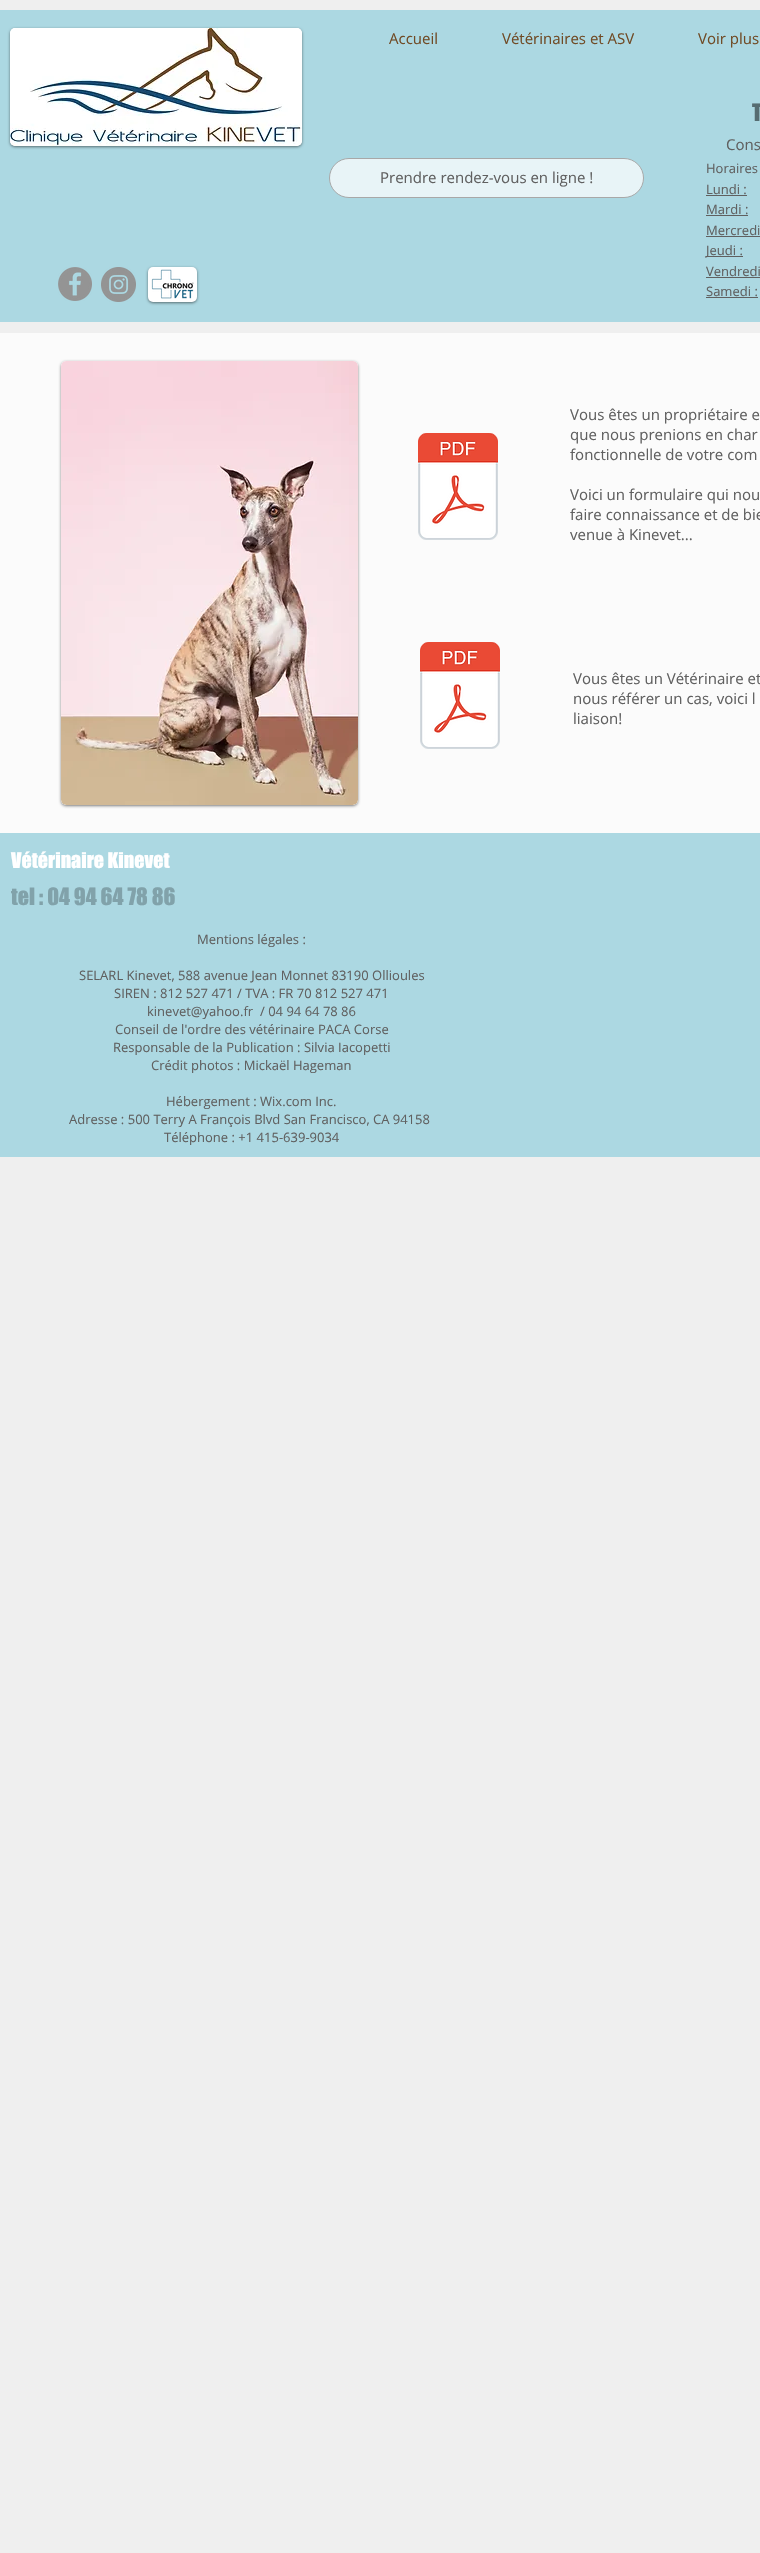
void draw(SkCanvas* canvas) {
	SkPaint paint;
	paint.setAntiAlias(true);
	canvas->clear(0xffefefef);
	paint.setColor(0xffacd8e2);
	canvas->drawRect(SkRect::MakeXYWH(0, 10, 760, 312), paint);
	paint.setColor(0x80000000);
	paint.setMaskFilter(SkMaskFilter::MakeBlur(kNormal_SkBlurStyle, 1.5));
	canvas->drawRoundRect(SkRect::MakeXYWH(10, 29, 292, 118), 5, 5, paint);
	paint.setMaskFilter(nullptr);
	paint.setColor(0xffffffff);
	canvas->drawRoundRect(SkRect::MakeXYWH(10, 28, 292, 118), 5, 5, paint);
	canvas->drawImageRect(SkImages::DeferredFromEncodedData(SkData::MakeFromFileName("img1.png")), SkRect::MakeXYWH(10, 28, 292, 118), SkSamplingOptions());
	SkFont f1(fontMgr->matchFamilyStyle("Open Sans", SkFontStyle::Normal()), 15);
	f1.setSubpixel(true);
	paint.setColor(0xff704b26);
	canvas->drawString("Accueil", 389, 44, f1, paint);
	canvas->drawString("Vétérinaires et ASV", 502, 44, f1, paint);
	canvas->drawString("Voir plus", 698, 44, f1, paint);
	SkFont f2(fontMgr->matchFamilyStyle("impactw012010", SkFontStyle::Normal()), 22);
	f2.setSubpixel(true);
	paint.setColor(0xff566c71);
	canvas->drawString("T", 752, 121, f2, paint);
	paint.setColor(0xff606060);
	canvas->drawString("Cons", 726, 150, f1, paint);
	paint.setColor(0xffe8f4f7);
	canvas->drawRoundRect(SkRect::MakeXYWH(329.5, 158.5, 314, 39), 19.5, 19.5, paint);
	paint.setStroke(true);
	paint.setStrokeWidth(1);
	paint.setColor(0xffa8a8a8);
	canvas->drawRoundRect(SkRect::MakeXYWH(329.5, 158.5, 314, 39), 19.5, 19.5, paint);
	paint.setStroke(false);
	paint.setColor(0xff606060);
	canvas->drawString("Prendre rendez-vous en ligne !", 380, 183, f1, paint);
	SkFont f3(fontMgr->matchFamilyStyle("Open Sans", SkFontStyle::Normal()), 13);
	f3.setSubpixel(true);
	canvas->drawString("Horaires", 706, 173, f3, paint);
	canvas->drawString("Lundi :", 706, 194, f3, paint);
	canvas->drawRect(SkRect::MakeXYWH(706, 195, 41, 1), paint);
	canvas->drawString("Mardi :", 706, 214, f3, paint);
	canvas->drawRect(SkRect::MakeXYWH(706, 215, 42, 1), paint);
	canvas->drawString("Mercredi", 706, 235, f3, paint);
	canvas->drawRect(SkRect::MakeXYWH(706, 236, 54, 1), paint);
	canvas->drawRect(SkRect::MakeXYWH(706, 256, 37, 1), paint);
	canvas->drawString("Jeudi :", 706, 255, f3, paint);
	canvas->drawString("Vendredi", 706, 276, f3, paint);
	canvas->drawRect(SkRect::MakeXYWH(706, 277, 54, 1), paint);
	canvas->drawString("Samedi :", 706, 296, f3, paint);
	canvas->drawRect(SkRect::MakeXYWH(706, 297, 52, 1), paint);
	canvas->drawImageRect(SkImages::DeferredFromEncodedData(SkData::MakeFromFileName("img2.png")), SkRect::MakeXYWH(58, 267, 34, 34), SkSamplingOptions());
	canvas->drawImageRect(SkImages::DeferredFromEncodedData(SkData::MakeFromFileName("img3.png")), SkRect::MakeXYWH(101, 267, 35, 35), SkSamplingOptions());
	paint.setColor(0x80000000);
	paint.setMaskFilter(SkMaskFilter::MakeBlur(kNormal_SkBlurStyle, 1.5));
	canvas->drawRoundRect(SkRect::MakeXYWH(148, 268, 49, 35), 5, 5, paint);
	paint.setMaskFilter(nullptr);
	paint.setColor(0xffffffff);
	canvas->drawRoundRect(SkRect::MakeXYWH(148, 267, 49, 35), 5, 5, paint);
	canvas->drawImageRect(SkImages::DeferredFromEncodedData(SkData::MakeFromFileName("img4.png")), SkRect::MakeXYWH(151, 269, 43, 30), SkSamplingOptions());
	paint.setColor(0xfffbfbfb);
	canvas->drawRect(SkRect::MakeXYWH(0, 333, 760, 500), paint);
	paint.setColor(0x80000000);
	paint.setMaskFilter(SkMaskFilter::MakeBlur(kNormal_SkBlurStyle, 1.5));
	canvas->drawRoundRect(SkRect::MakeXYWH(61, 362, 297, 444), 5, 5, paint);
	paint.setMaskFilter(nullptr);
	paint.setColor(0xffffffff);
	canvas->drawRoundRect(SkRect::MakeXYWH(61, 361, 297, 444), 5, 5, paint);
	canvas->drawImageRect(SkImages::DeferredFromEncodedData(SkData::MakeFromFileName("img5.png")), SkRect::MakeXYWH(61, 361, 297, 444), SkSamplingOptions());
	canvas->drawImageRect(SkImages::DeferredFromEncodedData(SkData::MakeFromFileName("img6.png")), SkRect::MakeXYWH(418, 433, 80, 107), SkSamplingOptions());
	paint.setColor(0xff606060);
	canvas->drawString("Vous êtes un propriétaire e", 570, 420, f1, paint);
	canvas->drawString("que nous prenions en char", 570, 440, f1, paint);
	canvas->drawString("fonctionnelle de votre com", 570, 460, f1, paint);
	canvas->drawString("Voici un formulaire qui nou", 570, 500, f1, paint);
	canvas->drawString("faire connaissance et de bie", 570, 520, f1, paint);
	canvas->drawString("venue à Kinevet...", 570, 540, f1, paint);
	canvas->drawImageRect(SkImages::DeferredFromEncodedData(SkData::MakeFromFileName("img6.png")), SkRect::MakeXYWH(420, 642, 80, 107), SkSamplingOptions());
	canvas->drawString("Vous êtes un Vétérinaire et", 573, 684, f1, paint);
	canvas->drawString("nous référer un cas, voici l", 573, 704, f1, paint);
	canvas->drawString("liaison!", 573, 724, f1, paint);
	paint.setColor(0xffacd8e2);
	canvas->drawRect(SkRect::MakeXYWH(0, 833, 760, 324), paint);
	SkFont f4(fontMgr->matchFamilyStyle("impactw012010", SkFontStyle::Normal()), 20);
	f4.setSubpixel(true);
	paint.setColor(0xffffffff);
	canvas->drawString("Vétérinaire Kinevet", 11, 868, f4, paint);
	paint.setColor(0xff81a2aa);
	canvas->drawString("tel : 04 94 64 78 86", 11, 905, f2, paint);
	paint.setColor(0xff606060);
	canvas->drawString("Mentions légales :", 197, 944, f3, paint);
	canvas->drawString("SELARL Kinevet, 588 avenue Jean Monnet 83190 Ollioules", 79, 980, f3, paint);
	canvas->drawString("SIREN : 812 527 471 / TVA : FR 70 812 527 471", 114, 998, f3, paint);
	canvas->drawString("kinevet@yahoo.fr", 147, 1016, f3, paint);
	canvas->drawString("/ 04 94 64 78 86", 260, 1016, f3, paint);
	canvas->drawString("Conseil de l'ordre des vétérinaire PACA Corse", 115, 1034, f3, paint);
	canvas->drawString("Responsable de la Publication : Silvia Iacopetti", 113, 1052, f3, paint);
	canvas->drawString("Crédit photos : Mickaël Hageman", 151, 1070, f3, paint);
	canvas->drawString("Hébergement : Wix.com Inc.", 166, 1106, f3, paint);
	canvas->drawString("Adresse : 500 Terry A François Blvd San Francisco, CA 94158", 69, 1124, f3, paint);
	canvas->drawString("Téléphone : +1 415-639-9034", 164, 1142, f3, paint);
}
